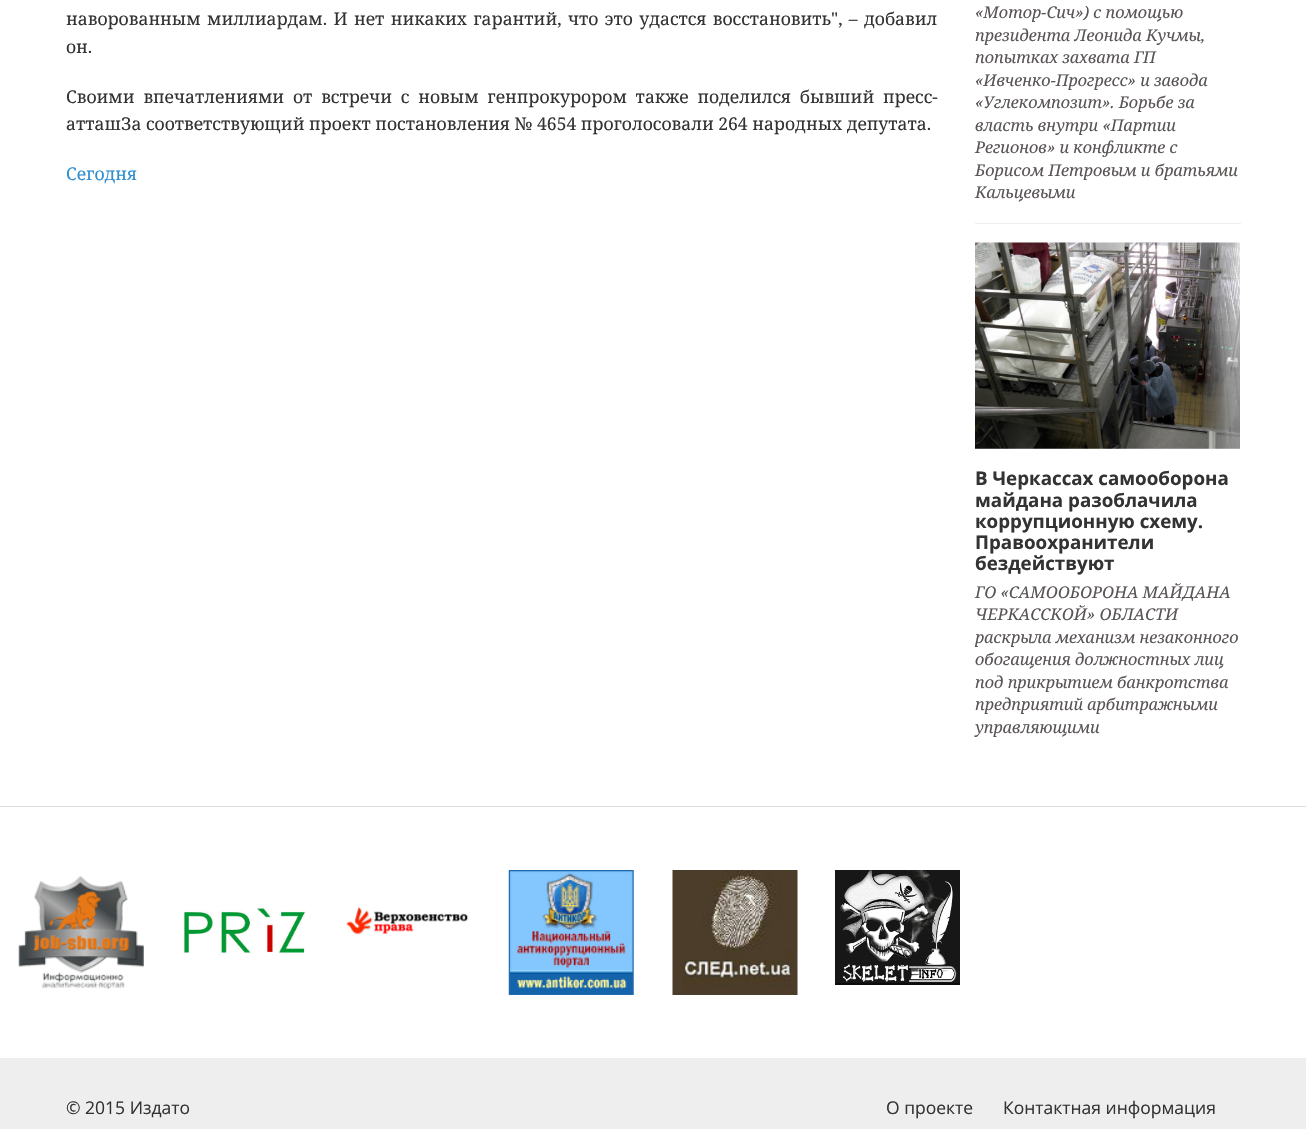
void draw(SkCanvas* canvas) {
	SkPaint paint;
	paint.setAntiAlias(true);
	auto spacedText = [&](const char* s, float x, float y, const SkFont& font, const SkPaint& ink, float letter, float word) {
		std::vector<SkGlyphID> glyphs(font.countText(s, strlen(s), SkTextEncoding::kUTF8));
		std::vector<float> xs(glyphs.size());
		font.textToGlyphs(s, strlen(s), SkTextEncoding::kUTF8, glyphs);
		font.getXPos(glyphs, xs, x);
		float extra = 0;
		for (size_t i = 0; i < glyphs.size(); i++) {
			xs[i] += extra;
			extra += letter + word * (glyphs[i] == font.unicharToGlyph(' '));
		}
		canvas->drawTextBlob(SkTextBlob::MakeFromPosHGlyphs(glyphs, xs, y, font), 0, 0, ink);
	};
	canvas->clear(0xffffffff);
	SkFont f1(fontMgr->matchFamilyStyle("Noto Serif", SkFontStyle::Normal()), 17.5);
	f1.setSubpixel(true);
	paint.setColor(0xff333333);
	spacedText("наворованным миллиардам. И нет никаких гарантий, что это удастся восстановить\", – добавил", 66, 25, f1, paint, 0, 1.8);
	canvas->drawString("он.", 66, 53, f1, paint);
	spacedText("Своими впечатлениями от встречи с новым генпрокурором также поделился бывший пресс-", 66, 103, f1, paint, 0, 4.25);
	canvas->drawString("атташЗа соответствующий проект постановления № 4654 проголосовали 264 народных депутата.", 66, 130, f1, paint);
	paint.setColor(0xff2e8ece);
	canvas->drawString("Сегодня", 66, 180, f1, paint);
	paint.setColor(0xffeeeeee);
	canvas->drawRect(SkRect::MakeXYWH(975, 223, 266, 1), paint);
	SkFont f2(fontMgr->matchFamilyStyle("Noto Serif", SkFontStyle::Italic()), 16.25);
	f2.setSubpixel(true);
	paint.setColor(0xff5a5555);
	canvas->drawString("«Мотор-Сич») с помощью", 975, 18, f2, paint);
	canvas->drawString("президента Леонида Кучмы,", 975, 41, f2, paint);
	canvas->drawString("попытках захвата ГП", 975, 63, f2, paint);
	canvas->drawString("«Ивченко-Прогресс» и завода", 975, 86, f2, paint);
	canvas->drawString("«Углекомпозит». Борьбе за", 975, 108, f2, paint);
	canvas->drawString("власть внутри «Партии", 975, 131, f2, paint);
	canvas->drawString("Регионов» и конфликте с", 975, 153, f2, paint);
	canvas->drawString("Борисом Петровым и братьями", 975, 176, f2, paint);
	canvas->drawString("Кальцевыми", 975, 198, f2, paint);
	canvas->drawImageRect(SkImages::DeferredFromEncodedData(SkData::MakeFromFileName("img1.png")), SkRect::MakeXYWH(975, 242, 265, 207), SkSamplingOptions());
	SkFont f3(fontMgr->matchFamilyStyle("Open Sans", SkFontStyle::Bold()), 18.75);
	f3.setSubpixel(true);
	paint.setColor(0xff333333);
	canvas->drawString("В Черкассах самооборона", 975, 485, f3, paint);
	canvas->drawString("майдана разоблачила", 975, 507, f3, paint);
	canvas->drawString("коррупционную схему.", 975, 528, f3, paint);
	canvas->drawString("Правоохранители", 975, 549, f3, paint);
	canvas->drawString("бездействуют", 975, 570, f3, paint);
	paint.setColor(0xff5a5555);
	canvas->drawString("ГО «САМООБОРОНА МАЙДАНА", 975, 598, f2, paint);
	canvas->drawString("ЧЕРКАССКОЙ» ОБЛАСТИ", 975, 620, f2, paint);
	canvas->drawString("раскрыла механизм незаконного", 975, 643, f2, paint);
	canvas->drawString("обогащения должностных лиц", 975, 665, f2, paint);
	canvas->drawString("под прикрытием банкротства", 975, 688, f2, paint);
	canvas->drawString("предприятий арбитражными", 975, 710, f2, paint);
	canvas->drawString("управляющими", 975, 733, f2, paint);
	paint.setColor(0xffdedede);
	canvas->drawRect(SkRect::MakeXYWH(0, 806, 1306, 1), paint);
	canvas->drawImageRect(SkImages::DeferredFromEncodedData(SkData::MakeFromFileName("img2.png")), SkRect::MakeXYWH(18, 876, 126, 113), SkSamplingOptions());
	canvas->drawImageRect(SkImages::DeferredFromEncodedData(SkData::MakeFromFileName("img3.png")), SkRect::MakeXYWH(183, 907, 123, 46), SkSamplingOptions());
	canvas->drawImageRect(SkImages::DeferredFromEncodedData(SkData::MakeFromFileName("img4.png")), SkRect::MakeXYWH(346, 907, 123, 28), SkSamplingOptions());
	canvas->drawImageRect(SkImages::DeferredFromEncodedData(SkData::MakeFromFileName("img5.png")), SkRect::MakeXYWH(508, 870, 126, 125), SkSamplingOptions());
	canvas->drawImageRect(SkImages::DeferredFromEncodedData(SkData::MakeFromFileName("img6.png")), SkRect::MakeXYWH(672, 870, 126, 125), SkSamplingOptions());
	canvas->drawImageRect(SkImages::DeferredFromEncodedData(SkData::MakeFromFileName("img7.png")), SkRect::MakeXYWH(835, 870, 125, 115), SkSamplingOptions());
	paint.setColor(0xffeeeeee);
	canvas->drawRect(SkRect::MakeXYWH(0, 1058, 1306, 71), paint);
	SkFont f4(fontMgr->matchFamilyStyle("Open Sans", SkFontStyle::Normal()), 17.5);
	f4.setSubpixel(true);
	paint.setColor(0xff333333);
	canvas->drawString("© 2015 Издато", 66, 1114, f4, paint);
	canvas->drawString("О проекте", 886, 1114, f4, paint);
	canvas->drawString("Контактная информация", 1003, 1114, f4, paint);
}
